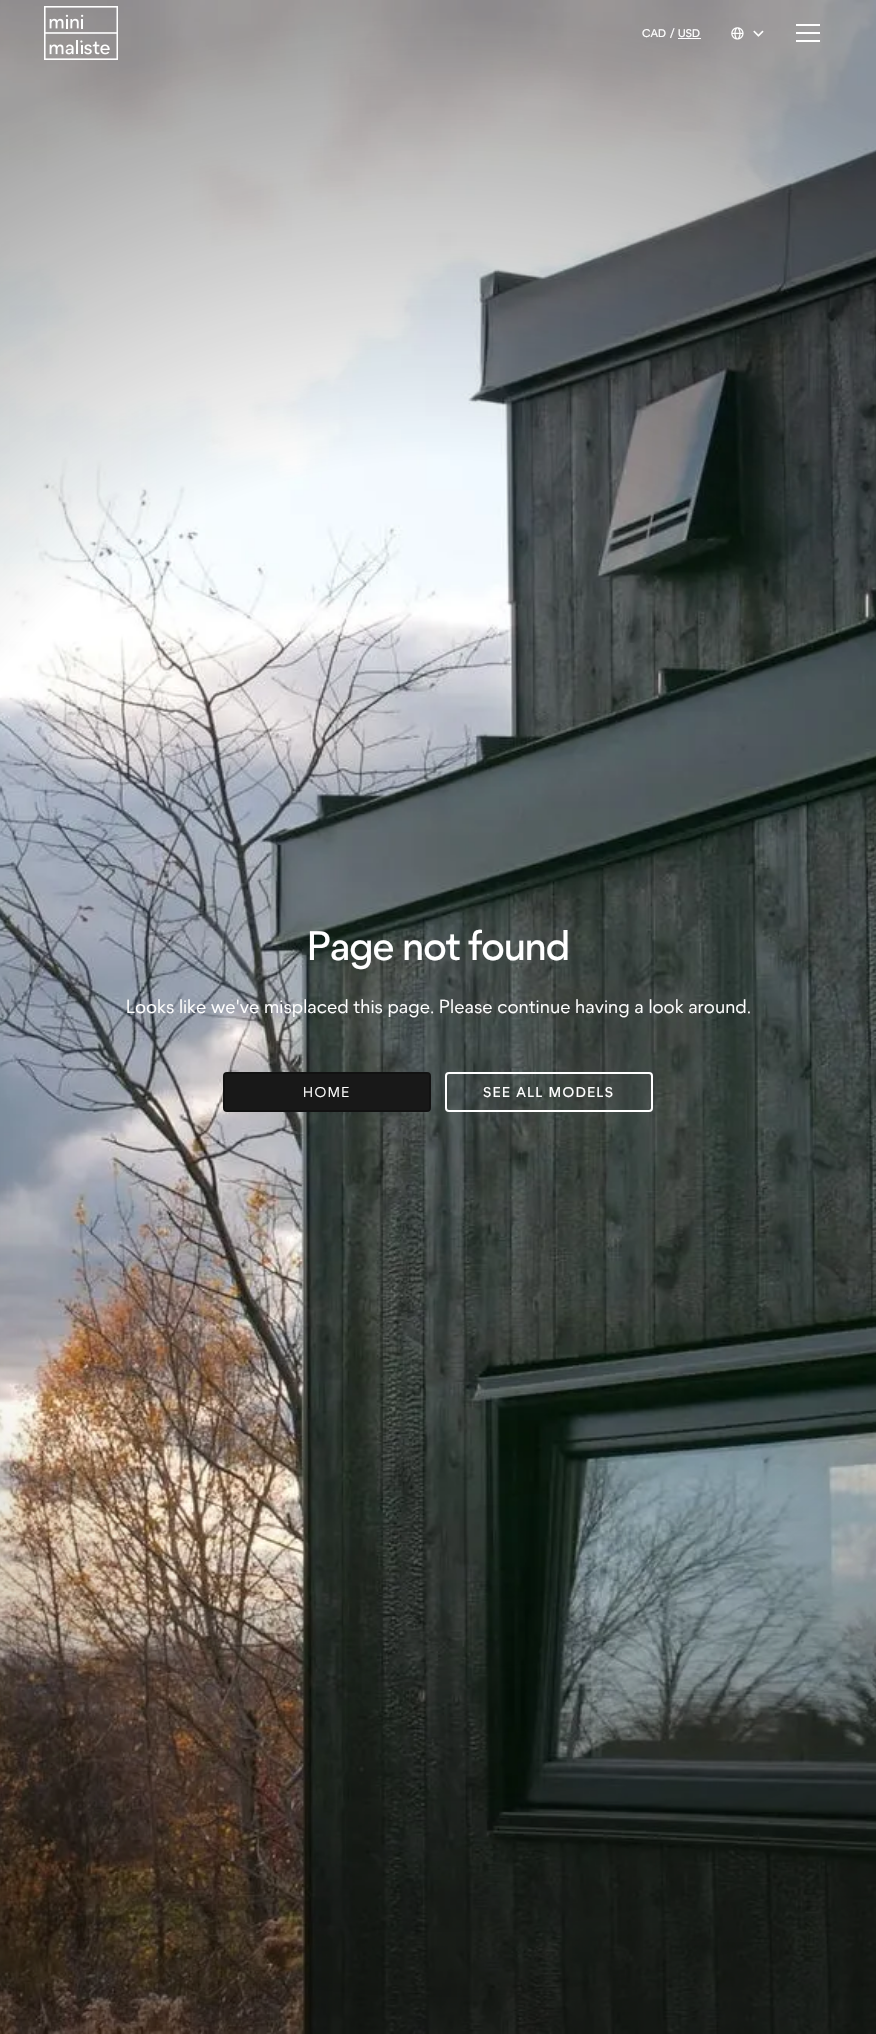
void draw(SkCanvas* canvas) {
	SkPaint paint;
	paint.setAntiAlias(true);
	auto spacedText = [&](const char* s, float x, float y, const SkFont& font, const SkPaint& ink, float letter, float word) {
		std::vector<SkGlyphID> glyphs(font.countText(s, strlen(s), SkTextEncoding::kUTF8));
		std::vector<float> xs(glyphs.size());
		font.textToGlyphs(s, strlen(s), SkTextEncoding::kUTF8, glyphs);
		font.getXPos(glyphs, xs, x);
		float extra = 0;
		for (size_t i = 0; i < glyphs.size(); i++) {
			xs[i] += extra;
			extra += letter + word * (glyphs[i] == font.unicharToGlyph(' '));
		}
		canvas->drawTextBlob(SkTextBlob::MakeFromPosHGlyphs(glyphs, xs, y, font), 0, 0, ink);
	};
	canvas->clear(0xffffffff);
	canvas->drawImageRect(SkImages::DeferredFromEncodedData(SkData::MakeFromFileName("img4.png")), SkRect::MakeXYWH(0, 0, 876, 2034), SkSamplingOptions());
	canvas->drawImageRect(SkImages::DeferredFromEncodedData(SkData::MakeFromFileName("img1.png")), SkRect::MakeXYWH(44, 6, 74, 54), SkSamplingOptions());
	SkFont f1(fontMgr->matchFamilyStyle("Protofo", SkFontStyle(500, SkFontStyle::kNormal_Width, SkFontStyle::kUpright_Slant)), 11);
	f1.setSubpixel(true);
	paint.setColor(0xffffffff);
	canvas->drawString("CAD", 642, 37, f1, paint);
	canvas->drawString("/", 670, 37, f1, paint);
	canvas->drawString("USD", 678, 37, f1, paint);
	canvas->drawRect(SkRect::MakeXYWH(678, 38, 23, 1), paint);
	canvas->drawImageRect(SkImages::DeferredFromEncodedData(SkData::MakeFromFileName("img2.png")), SkRect::MakeXYWH(731, 27, 13, 13), SkSamplingOptions());
	canvas->drawImageRect(SkImages::DeferredFromEncodedData(SkData::MakeFromFileName("img3.png")), SkRect::MakeXYWH(753, 30, 11, 7), SkSamplingOptions());
	canvas->drawRect(SkRect::MakeXYWH(796, 24, 24, 2), paint);
	canvas->drawRect(SkRect::MakeXYWH(796, 32, 24, 2), paint);
	canvas->drawRect(SkRect::MakeXYWH(796, 40, 24, 2), paint);
	SkFont f2(fontMgr->matchFamilyStyle("Protofo", SkFontStyle(500, SkFontStyle::kNormal_Width, SkFontStyle::kUpright_Slant)), 40.75);
	f2.setSubpixel(true);
	spacedText("Page not found", 307, 960, f2, paint, -1.5, 0);
	SkFont f3(fontMgr->matchFamilyStyle("Protofo", SkFontStyle::Normal()), 18.55);
	f3.setSubpixel(true);
	canvas->drawString("Looks like we've misplaced this page. Please continue having a look around.", 126, 1013, f3, paint);
	paint.setColor(0xff181818);
	canvas->drawRoundRect(SkRect::MakeXYWH(224, 1073, 206, 38), 3, 3, paint);
	paint.setStroke(true);
	paint.setStrokeWidth(2);
	paint.setColor(0xff111111);
	canvas->drawRoundRect(SkRect::MakeXYWH(224, 1073, 206, 38), 3, 3, paint);
	SkFont f4(fontMgr->matchFamilyStyle("Protofo", SkFontStyle::Normal()), 14);
	f4.setSubpixel(true);
	paint.setStroke(false);
	paint.setColor(0xffffffff);
	spacedText("HOME", 303, 1097, f4, paint, 1.5, 0);
	paint.setStroke(true);
	canvas->drawRoundRect(SkRect::MakeXYWH(446, 1073, 206, 38), 3, 3, paint);
	SkFont f5(fontMgr->matchFamilyStyle("Protofo", SkFontStyle(500, SkFontStyle::kNormal_Width, SkFontStyle::kUpright_Slant)), 14);
	f5.setSubpixel(true);
	paint.setStroke(false);
	spacedText("SEE ALL MODELS", 483, 1097, f5, paint, 1.5, 0);
}
